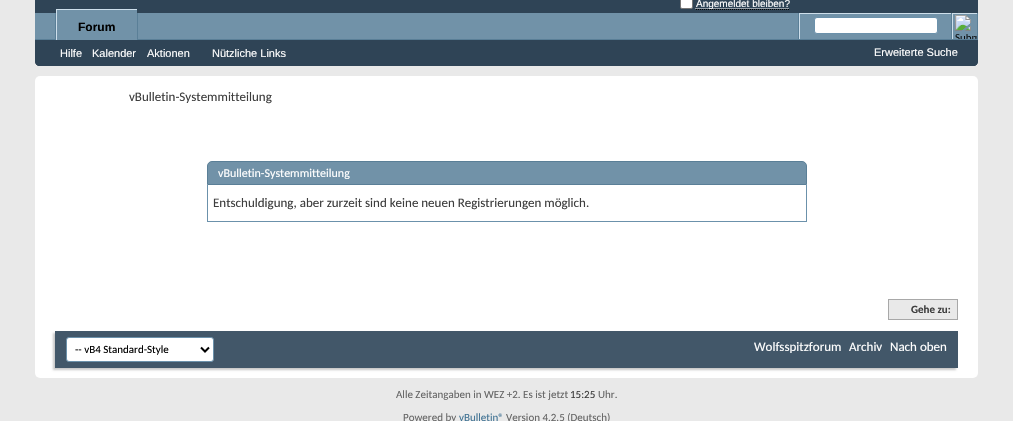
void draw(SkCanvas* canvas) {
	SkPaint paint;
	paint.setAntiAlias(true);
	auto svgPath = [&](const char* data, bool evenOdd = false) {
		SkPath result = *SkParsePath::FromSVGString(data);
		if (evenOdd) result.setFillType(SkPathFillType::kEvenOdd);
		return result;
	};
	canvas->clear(0xffe9e9e9);
	paint.setColor(0xff2f4456);
	canvas->drawPath(svgPath("M35-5H978V61C978 64 976 66 973 66H40C37 66 35 64 35 61Z"), paint);
	paint.setColor(0xffffffff);
	canvas->drawRoundRect(SkRect::MakeXYWH(680.5, -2.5, 12, 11), 1.5, 1.5, paint);
	paint.setStroke(true);
	paint.setStrokeWidth(1);
	paint.setColor(0xff767676);
	canvas->drawRoundRect(SkRect::MakeXYWH(680.5, -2.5, 12, 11), 1.5, 1.5, paint);
	paint.setColor(0xff000000);
	paint.setPathEffect(SkDashPathEffect::Make({{1, 1}}, 0));
	canvas->drawPath(svgPath("M696 9.5H790"), paint);
	paint.setPathEffect(nullptr);
	paint.setColor(0xffffffff);
	paint.setPathEffect(SkDashPathEffect::Make({{1, 1}}, 0));
	canvas->drawPath(svgPath("M695.5 8.5H789.5"), paint);
	paint.setPathEffect(nullptr);
	SkFont f1(fontMgr->matchFamilyStyle("Liberation Sans", SkFontStyle::Normal()), 10);
	f1.setSubpixel(true);
	paint.setStroke(false);
	canvas->drawString("Angemeldet bleiben?", 696, 7, f1, paint);
	paint.setColor(0xff2f4456);
	canvas->drawPath(svgPath("M35 13H978V61C978 64 976 66 973 66H40C37 66 35 64 35 61Z"), paint);
	paint.setColor(0xff7192a8);
	canvas->drawRect(SkRect::MakeXYWH(35, 13, 942, 26), paint);
	paint.setColor(0xff5a7f97);
	canvas->drawRect(SkRect::MakeXYWH(137, 13, 1, 26), paint);
	canvas->drawRect(SkRect::MakeXYWH(55, 13, 1, 26), paint);
	canvas->drawRect(SkRect::MakeXYWH(35, 39, 943, 1), paint);
	paint.setColor(0xff7192a8);
	canvas->drawRect(SkRect::MakeXYWH(57, 10, 80, 30), paint);
	paint.setColor(0xffcedfeb);
	canvas->drawRect(SkRect::MakeXYWH(56, 9, 81, 1), paint);
	canvas->drawRect(SkRect::MakeXYWH(56, 9, 1, 31), paint);
	SkFont f2(fontMgr->matchFamilyStyle("Liberation Sans", SkFontStyle::Bold()), 12);
	f2.setSubpixel(true);
	paint.setColor(0xff000000);
	canvas->drawString("Forum", 78, 31, f2, paint);
	SkFont f3(fontMgr->matchFamilyStyle("Liberation Sans", SkFontStyle::Normal()), 11);
	f3.setSubpixel(true);
	paint.setColor(0xffffffff);
	canvas->drawString("Hilfe", 60, 57, f3, paint);
	canvas->drawString("Kalender", 92, 57, f3, paint);
	canvas->drawString("Aktionen", 147, 57, f3, paint);
	canvas->drawString("Nützliche Links", 212, 57, f3, paint);
	paint.setColor(0xff5a7f97);
	canvas->drawRect(SkRect::MakeXYWH(798, 13, 1, 26), paint);
	paint.setColor(0xffcedfeb);
	canvas->drawRect(SkRect::MakeXYWH(799, 13, 152, 1), paint);
	canvas->drawRect(SkRect::MakeXYWH(799, 13, 1, 26), paint);
	paint.setColor(0xffffffff);
	canvas->drawRoundRect(SkRect::MakeXYWH(814.5, 17.5, 123, 16), 2.5, 2.5, paint);
	paint.setStroke(true);
	paint.setColor(0xff6b91ab);
	canvas->drawRoundRect(SkRect::MakeXYWH(814.5, 17.5, 123, 16), 2.5, 2.5, paint);
	paint.setStroke(false);
	paint.setColor(0xff5a7f97);
	canvas->drawRect(SkRect::MakeXYWH(977, 13, 1, 26), paint);
	canvas->drawRect(SkRect::MakeXYWH(951, 13, 1, 26), paint);
	paint.setColor(0xffcedfeb);
	canvas->drawRect(SkRect::MakeXYWH(952, 13, 25, 1), paint);
	canvas->drawRect(SkRect::MakeXYWH(952, 13, 1, 26), paint);
	canvas->drawImageRect(SkImages::DeferredFromEncodedData(SkData::MakeFromFileName("img1.png")), SkRect::MakeXYWH(955, 15, 22, 24), SkSamplingOptions());
	paint.setColor(0xffffffff);
	canvas->drawString("Erweiterte Suche", 874, 56, f3, paint);
	canvas->drawRoundRect(SkRect::MakeXYWH(35, 76, 943, 302), 5, 5, paint);
	SkFont f4(fontMgr->matchFamilyStyle("Carlito", SkFontStyle::Normal()), 13);
	f4.setSubpixel(true);
	paint.setColor(0xff3e3e3e);
	canvas->drawString("vBulletin-Systemmitteilung", 129, 101, f4, paint);
	paint.setColor(0xff7192a8);
	canvas->drawPath(svgPath("M212 161.5H802C804.5 161.5 806.5 163.5 806.5 166V184.5H207.5V166C207.5 163.5 209.5 161.5 212 161.5Z"), paint);
	paint.setStroke(true);
	paint.setColor(0xff5a7f97);
	canvas->drawPath(svgPath("M212 161.5H802C804.5 161.5 806.5 163.5 806.5 166V184.5H207.5V166C207.5 163.5 209.5 161.5 212 161.5Z"), paint);
	SkFont f5(fontMgr->matchFamilyStyle("Carlito", SkFontStyle::Normal()), 12);
	f5.setSubpixel(true);
	paint.setStroke(false);
	paint.setColor(0xffffffff);
	canvas->drawString("vBulletin-Systemmitteilung", 218, 177, f5, paint);
	paint.setColor(0xff6b91ab);
	canvas->drawRect(SkRect::MakeXYWH(806, 185, 1, 37), paint);
	canvas->drawRect(SkRect::MakeXYWH(207, 221, 600, 1), paint);
	canvas->drawRect(SkRect::MakeXYWH(207, 185, 1, 37), paint);
	paint.setColor(0xff3e3e3e);
	canvas->drawString("Entschuldigung, aber zurzeit sind keine neuen Registrierungen möglich.", 213, 207, f4, paint);
	paint.setColor(0xffe9e9e9);
	canvas->drawRect(SkRect::MakeXYWH(888.5, 299.5, 69, 20), paint);
	paint.setStroke(true);
	paint.setColor(0xffa8a8a8);
	canvas->drawRect(SkRect::MakeXYWH(888.5, 299.5, 69, 20), paint);
	SkFont f6(fontMgr->matchFamilyStyle("Carlito", SkFontStyle::Bold()), 11);
	f6.setSubpixel(true);
	paint.setStroke(false);
	paint.setColor(0xff3e3e3e);
	canvas->drawString("Gehe zu:", 911, 313, f6, paint);
	paint.setColor(0xffc8c8c8);
	paint.setMaskFilter(SkMaskFilter::MakeBlur(kNormal_SkBlurStyle, 1));
	canvas->drawRect(SkRect::MakeXYWH(53, 333, 903, 37), paint);
	paint.setMaskFilter(nullptr);
	paint.setColor(0xff425769);
	canvas->drawRect(SkRect::MakeXYWH(55, 331, 903, 37), paint);
	paint.setColor(0xffffffff);
	canvas->drawRoundRect(SkRect::MakeXYWH(66.5, 337.5, 147, 24), 2.5, 2.5, paint);
	paint.setStroke(true);
	paint.setColor(0xff6b91ab);
	canvas->drawRoundRect(SkRect::MakeXYWH(66.5, 337.5, 147, 24), 2.5, 2.5, paint);
	paint.setStrokeWidth(2);
	paint.setColor(0xff000000);
	canvas->drawPath(svgPath("M201 347.5L205 351.5L209 347.5"), paint);
	SkFont f7(fontMgr->matchFamilyStyle("Carlito", SkFontStyle::Normal()), 11);
	f7.setSubpixel(true);
	paint.setStroke(false);
	canvas->drawString("-- vB4 Standard-Style", 75, 353, f7, paint);
	paint.setColor(0xffffffff);
	canvas->drawString("Wolfsspitzforum", 754, 351, f4, paint);
	canvas->drawString("Archiv", 849, 351, f4, paint);
	canvas->drawString("Nach oben", 890, 351, f4, paint);
	paint.setColor(0xff666666);
	canvas->drawString("Alle Zeitangaben in WEZ +2. Es ist jetzt", 396, 398, f7, paint);
	paint.setColor(0xff3e3e3e);
	canvas->drawString("15:25", 570, 398, f7, paint);
	paint.setColor(0xff666666);
	canvas->drawString("Uhr.", 598, 398, f7, paint);
	canvas->drawString("Powered by", 403, 421, f7, paint);
	paint.setColor(0xff417394);
	canvas->drawString("vBulletin®", 459, 421, f7, paint);
	paint.setColor(0xff666666);
	canvas->drawString("Version 4.2.5 (Deutsch)", 506, 421, f7, paint);
}
